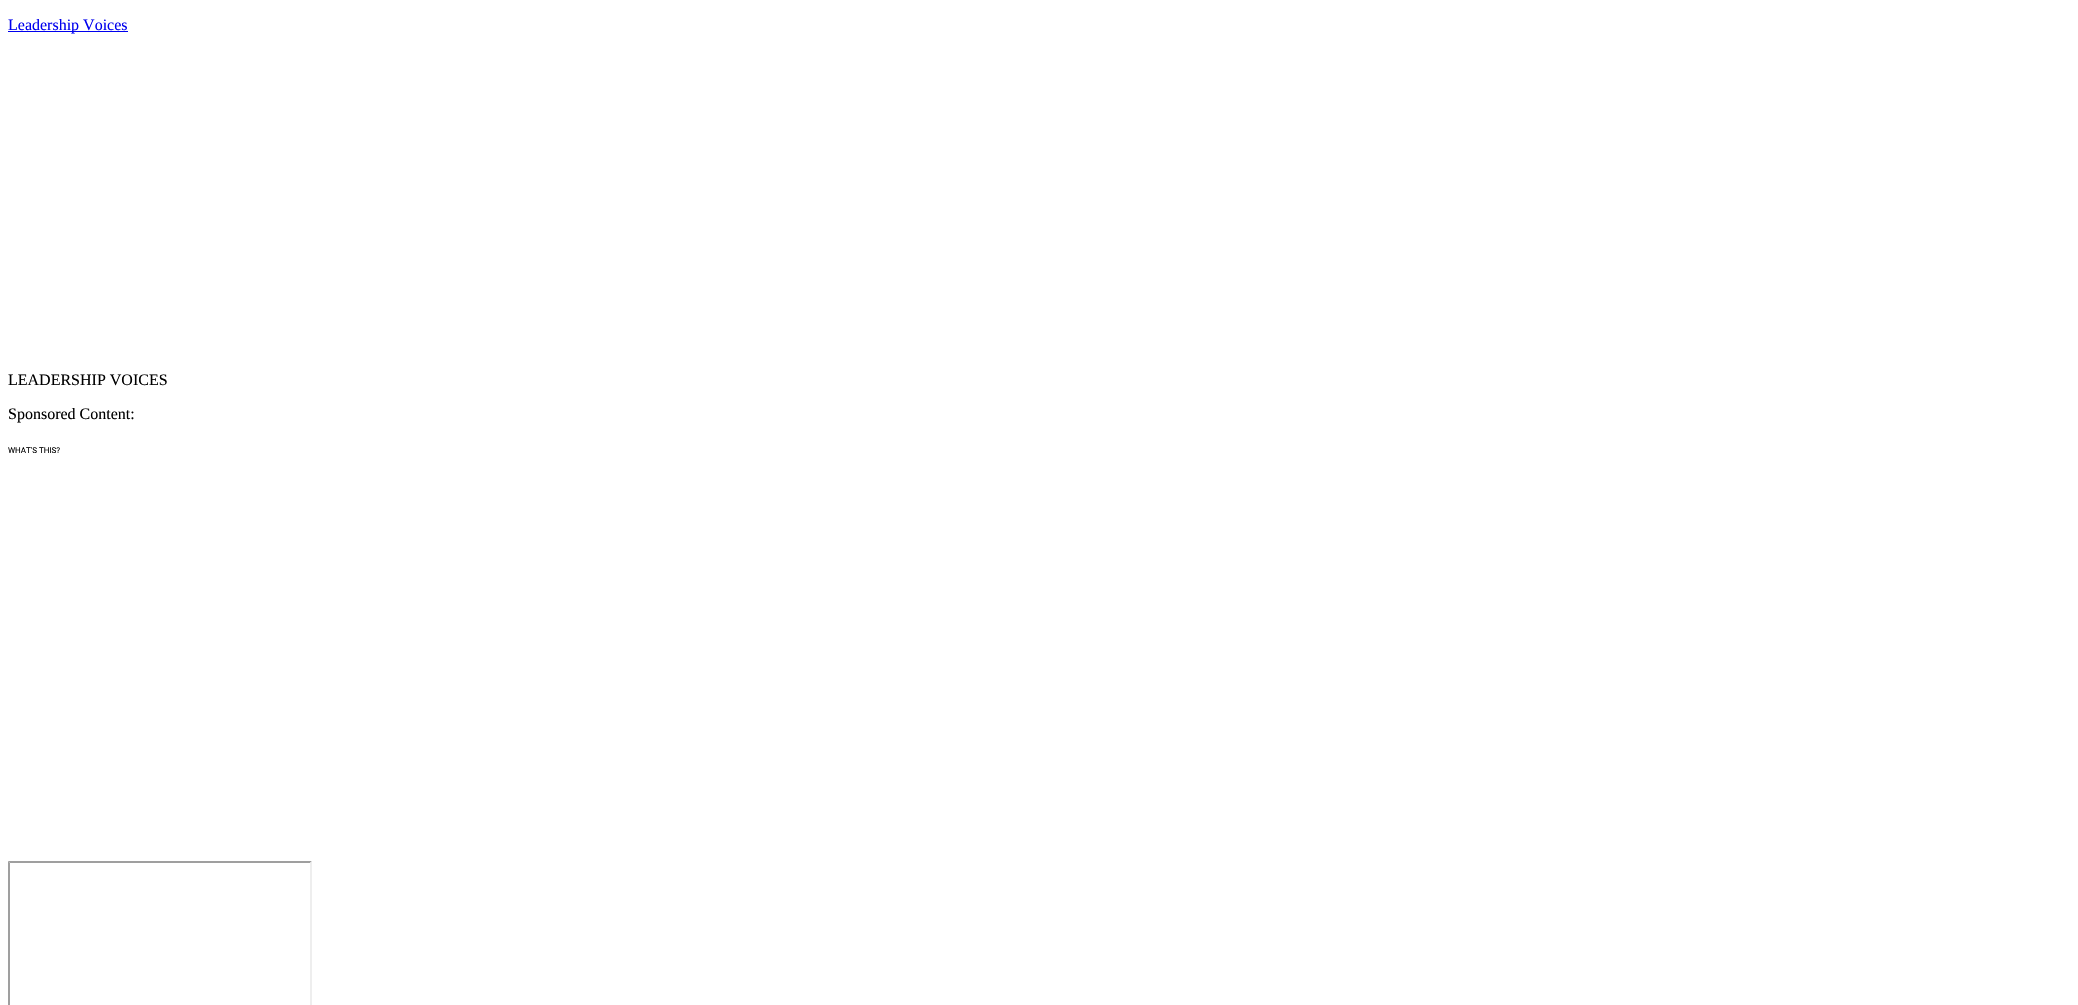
void draw(SkCanvas* canvas) {
	SkPaint paint;
	paint.setAntiAlias(true);
	auto svgPath = [&](const char* data, bool evenOdd = false) {
		SkPath result = *SkParsePath::FromSVGString(data);
		if (evenOdd) result.setFillType(SkPathFillType::kEvenOdd);
		return result;
	};
	canvas->clear(0xffffffff);
	paint.setColor(0xff0000ee);
	canvas->drawRect(SkRect::MakeXYWH(8, 31, 120, 1), paint);
	SkFont f1(fontMgr->matchFamilyStyle("Liberation Serif", SkFontStyle::Normal()), 16);
	f1.setSubpixel(true);
	canvas->drawString("Leadership Voices", 8, 30, f1, paint);
	paint.setColor(0xff000000);
	canvas->drawString("LEADERSHIP VOICES", 8, 385, f1, paint);
	canvas->drawString("Sponsored Content:", 8, 419, f1, paint);
	SkFont f2(fontMgr->matchFamilyStyle("Roboto", SkFontStyle::Normal()), 8);
	f2.setSubpixel(true);
	canvas->drawString("WHAT'S THIS?", 8, 453, f2, paint);
	paint.setColor(0xff9f9f9f);
	canvas->drawPath(svgPath("M8 861H312L310 863H10Z"), paint);
	canvas->drawPath(svgPath("M8 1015V861L10 863V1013Z"), paint);
	paint.setColor(0xffeeeeee);
	canvas->drawPath(svgPath("M312 861V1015L310 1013V863Z"), paint);
}
